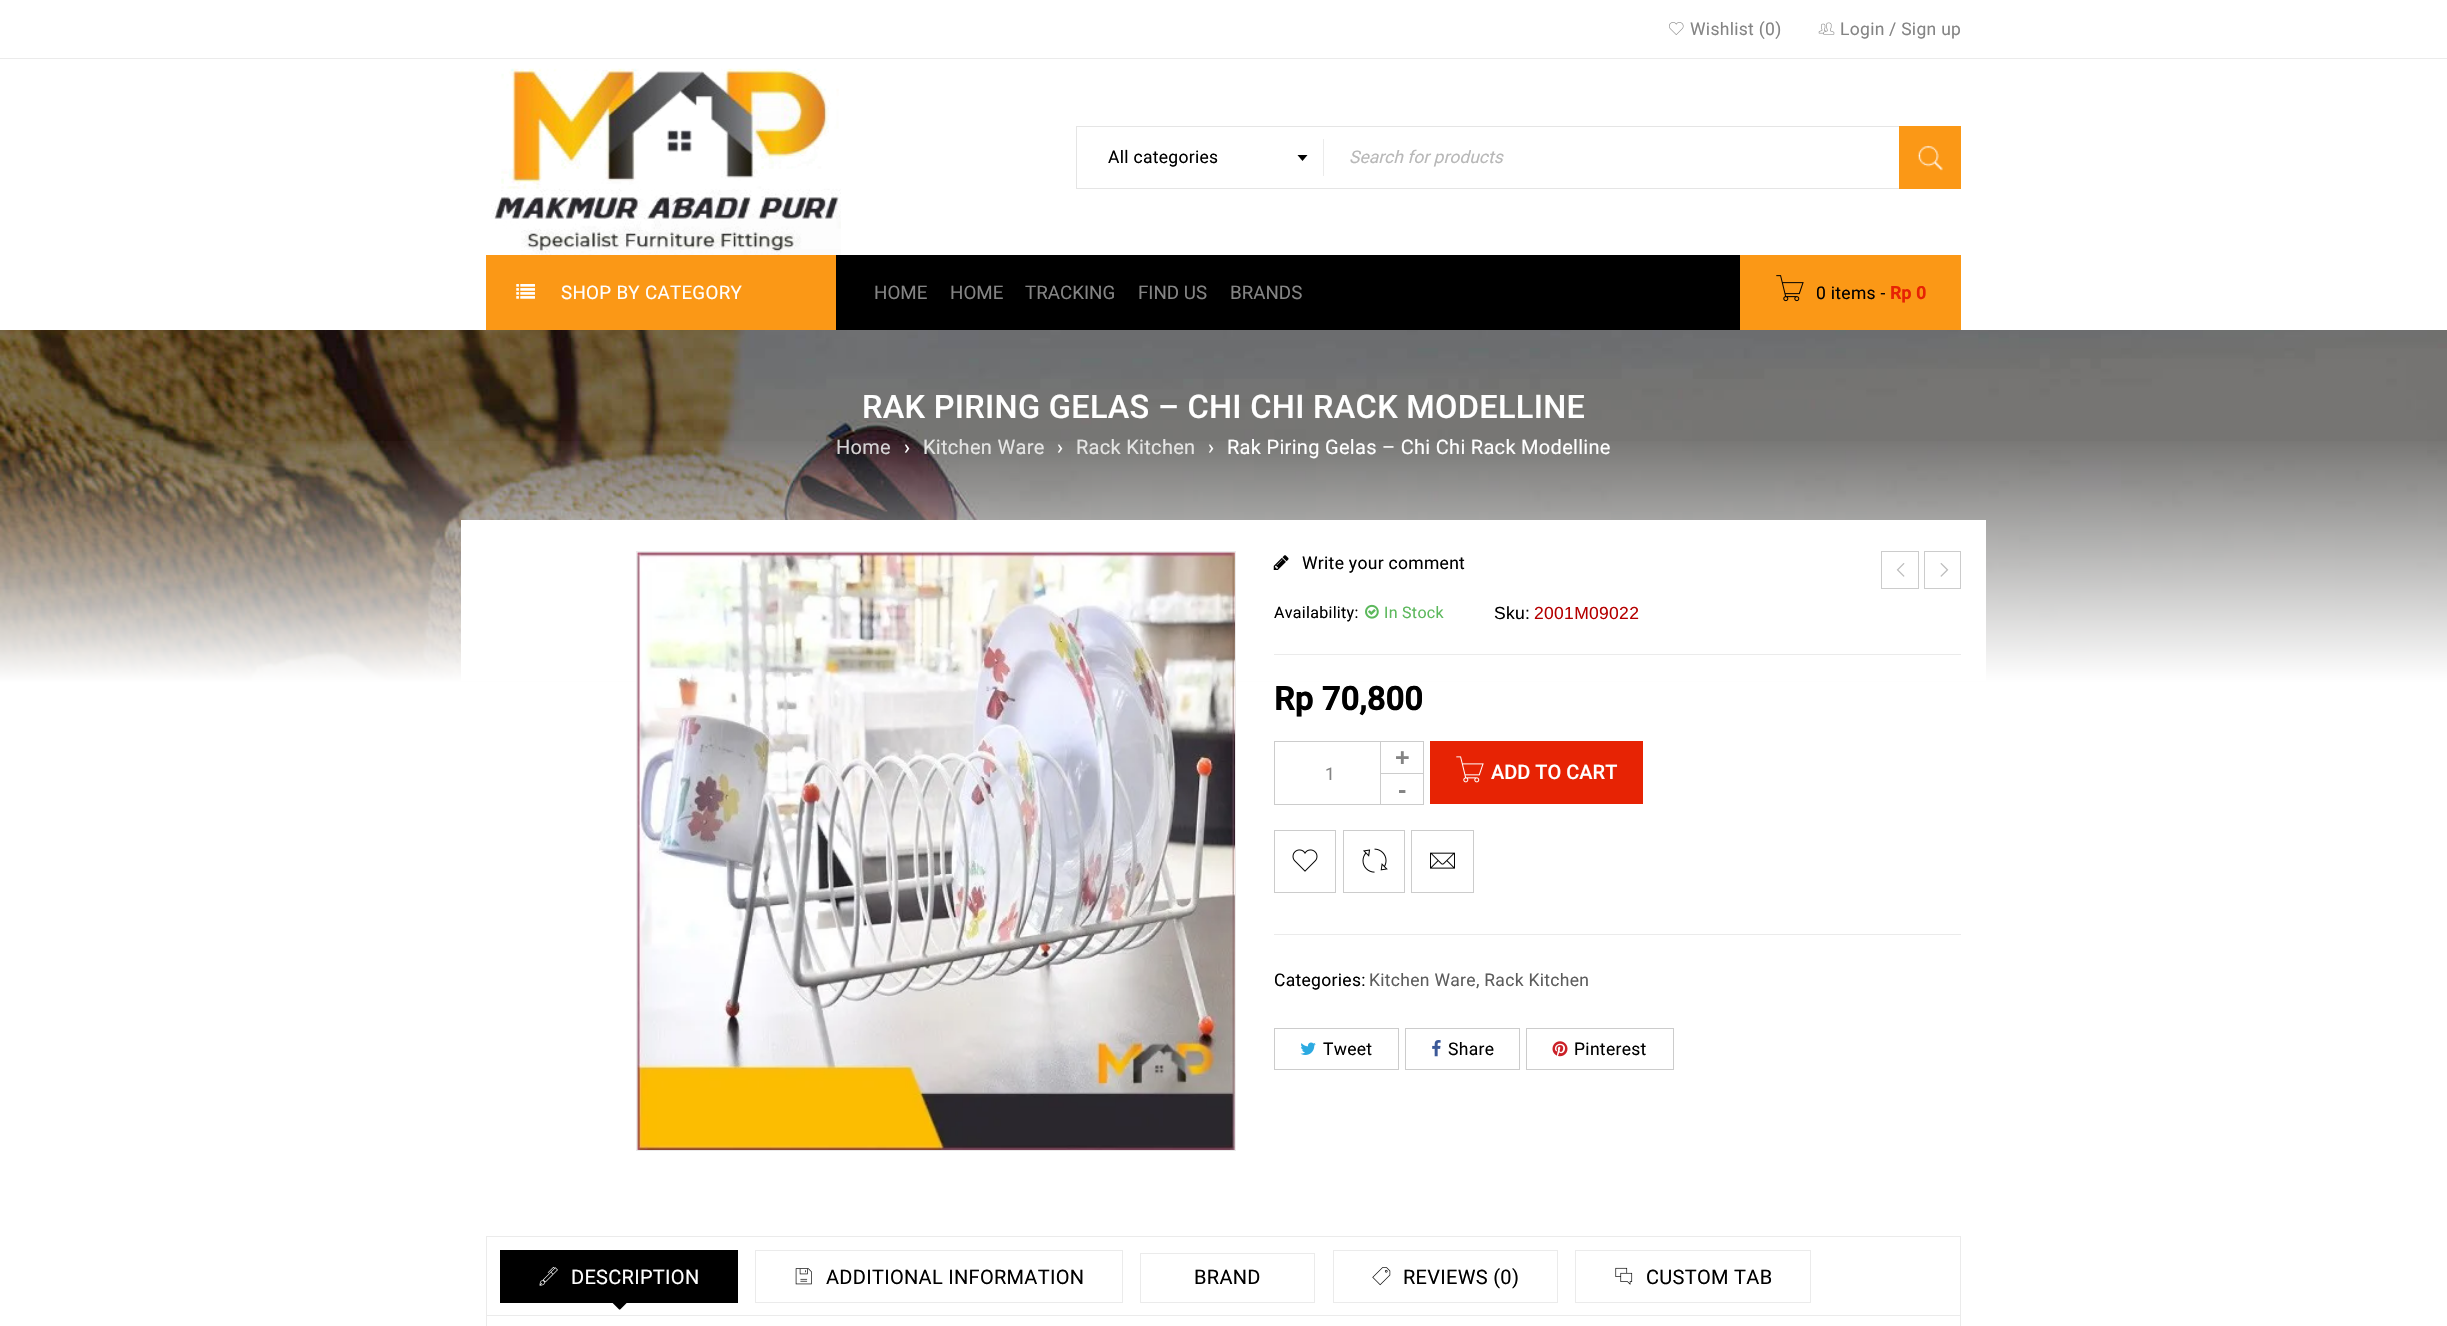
void draw(SkCanvas* canvas) {
	SkPaint paint;
	paint.setAntiAlias(true);
	auto spacedText = [&](const char* s, float x, float y, const SkFont& font, const SkPaint& ink, float letter, float word) {
		std::vector<SkGlyphID> glyphs(font.countText(s, strlen(s), SkTextEncoding::kUTF8));
		std::vector<float> xs(glyphs.size());
		font.textToGlyphs(s, strlen(s), SkTextEncoding::kUTF8, glyphs);
		font.getXPos(glyphs, xs, x);
		float extra = 0;
		for (size_t i = 0; i < glyphs.size(); i++) {
			xs[i] += extra;
			extra += letter + word * (glyphs[i] == font.unicharToGlyph(' '));
		}
		canvas->drawTextBlob(SkTextBlob::MakeFromPosHGlyphs(glyphs, xs, y, font), 0, 0, ink);
	};
	auto svgPath = [&](const char* data, bool evenOdd = false) {
		SkPath result = *SkParsePath::FromSVGString(data);
		if (evenOdd) result.setFillType(SkPathFillType::kEvenOdd);
		return result;
	};
	canvas->clear(0xffffffff);
	paint.setColor(0xffebebeb);
	canvas->drawRect(SkRect::MakeXYWH(0, 58, 2447, 1), paint);
	canvas->drawImageRect(SkImages::DeferredFromEncodedData(SkData::MakeFromFileName("img1.png")), SkRect::MakeXYWH(1669, 22, 15, 13), SkSamplingOptions());
	SkFont f1(fontMgr->matchFamilyStyle("Roboto", SkFontStyle::Normal()), 17.5);
	f1.setSubpixel(true);
	paint.setColor(0xff848484);
	spacedText("Wishlist (0)", 1690, 35, f1, paint, 0.3, 0);
	canvas->drawImageRect(SkImages::DeferredFromEncodedData(SkData::MakeFromFileName("img2.png")), SkRect::MakeXYWH(1818, 22, 17, 13), SkSamplingOptions());
	spacedText("Login", 1840, 35, f1, paint, 0.3, 0);
	spacedText("/ Sign up", 1889, 35, f1, paint, 0.3, 0);
	canvas->drawImageRect(SkImages::DeferredFromEncodedData(SkData::MakeFromFileName("img3.png")), SkRect::MakeXYWH(491, 68, 350, 187), SkSamplingOptions());
	paint.setStroke(true);
	paint.setStrokeWidth(1);
	paint.setColor(0xffe5e5e5);
	canvas->drawRect(SkRect::MakeXYWH(1076.5, 126.5, 884, 62), paint);
	paint.setStroke(false);
	paint.setColor(0xff000000);
	spacedText("All categories", 1108, 163, f1, paint, 0.3, 0);
	paint.setColor(0xffebebeb);
	canvas->drawRect(SkRect::MakeXYWH(1323, 139, 1, 37), paint);
	paint.setColor(0xff000000);
	canvas->drawPath(svgPath("M1297.5 155H1307.5L1302.5 161Z"), paint);
	SkFont f2(fontMgr->matchFamilyStyle("Roboto", SkFontStyle::Italic()), 17.5);
	f2.setSubpixel(true);
	paint.setColor(0xffb8b8b8);
	canvas->drawString("Search for products", 1349, 163, f2, paint);
	paint.setColor(0xfffb9816);
	canvas->drawRect(SkRect::MakeXYWH(1899, 126, 62, 63), paint);
	canvas->drawImageRect(SkImages::DeferredFromEncodedData(SkData::MakeFromFileName("img4.png")), SkRect::MakeXYWH(1917, 145, 26, 26), SkSamplingOptions());
	paint.setColor(0xff000000);
	canvas->drawRect(SkRect::MakeXYWH(836, 255, 904, 75), paint);
	paint.setColor(0xfffb9816);
	canvas->drawRect(SkRect::MakeXYWH(486, 255, 350, 75), paint);
	canvas->drawImageRect(SkImages::DeferredFromEncodedData(SkData::MakeFromFileName("img5.png")), SkRect::MakeXYWH(516, 284, 19, 15), SkSamplingOptions());
	SkFont f3(fontMgr->matchFamilyStyle("Roboto", SkFontStyle::Normal()), 18.75);
	f3.setSubpixel(true);
	paint.setColor(0xffffffff);
	spacedText("SHOP BY CATEGORY", 561, 299, f3, paint, 0.3, 0);
	paint.setColor(0xff848484);
	canvas->drawString("HOME", 874, 299, f3, paint);
	canvas->drawString("HOME", 950, 299, f3, paint);
	canvas->drawString("TRACKING", 1025, 299, f3, paint);
	canvas->drawString("FIND US", 1138, 299, f3, paint);
	canvas->drawString("BRANDS", 1230, 299, f3, paint);
	paint.setColor(0xfffb9816);
	canvas->drawRect(SkRect::MakeXYWH(1740, 255, 221, 75), paint);
	canvas->drawImageRect(SkImages::DeferredFromEncodedData(SkData::MakeFromFileName("img6.png")), SkRect::MakeXYWH(1776, 275, 28, 27), SkSamplingOptions());
	paint.setColor(0xff000000);
	spacedText("0 items -", 1816, 299, f1, paint, 0.3, 0);
	SkFont f4(fontMgr->matchFamilyStyle("Roboto", SkFontStyle::Bold()), 17.5);
	f4.setSubpixel(true);
	paint.setColor(0xffe72304);
	spacedText("Rp 0", 1890, 299, f4, paint, 0.3, 0);
	canvas->drawImageRect(SkImages::DeferredFromEncodedData(SkData::MakeFromFileName("img7.png")), SkRect::MakeXYWH(0, 330, 2447, 352), SkSamplingOptions());
	SkFont f5(fontMgr->matchFamilyStyle("Roboto", SkFontStyle(500, SkFontStyle::kNormal_Width, SkFontStyle::kUpright_Slant)), 32.5);
	f5.setSubpixel(true);
	paint.setColor(0xffffffff);
	spacedText("RAK PIRING GELAS – CHI CHI RACK MODELLINE", 862, 418, f5, paint, 0.3, 0);
	{
		const SkColor colors[] = {0x00ffffff, 0xffffffff};
		const float stops[] = {0.3, 1};
		const SkPoint ends[] = {{1224, 330}, {1224, 683}};
		paint.setShader(SkGradientShader::MakeLinear(ends, colors, stops, 2, SkTileMode::kClamp));
		paint.setAlpha(255);
	}
	canvas->drawRect(SkRect::MakeXYWH(0, 441, 2447, 241), paint);
	SkFont f6(fontMgr->matchFamilyStyle("Roboto", SkFontStyle::Normal()), 20);
	f6.setSubpixel(true);
	paint.setShader(nullptr);
	paint.setColor(0xffd6d3d4);
	spacedText("Home", 836, 454, f6, paint, 0.3, 0);
	paint.setColor(0xffffffff);
	spacedText("›", 904, 454, f6, paint, 0.3, 0);
	paint.setColor(0xffe5e5e4);
	spacedText("Kitchen Ware", 923, 454, f6, paint, 0.3, 0);
	paint.setColor(0xffffffff);
	spacedText("›", 1057, 454, f6, paint, 0.3, 0);
	paint.setColor(0xffe5e5e4);
	spacedText("Rack Kitchen", 1076, 454, f6, paint, 0.3, 0);
	paint.setColor(0xffffffff);
	spacedText("›", 1208, 454, f6, paint, 0.3, 0);
	spacedText("Rak Piring Gelas – Chi Chi Rack Modelline", 1227, 454, f6, paint, 0.3, 0);
	canvas->drawRect(SkRect::MakeXYWH(461, 520, 1525, 161), paint);
	paint.setStroke(true);
	paint.setColor(0xffebebeb);
	canvas->drawRect(SkRect::MakeXYWH(636.5, 551.5, 599, 599), paint);
	canvas->drawImageRect(SkImages::DeferredFromEncodedData(SkData::MakeFromFileName("img8.png")), SkRect::MakeXYWH(637, 552, 598, 598), SkSamplingOptions());
	canvas->drawImageRect(SkImages::DeferredFromEncodedData(SkData::MakeFromFileName("img9.png")), SkRect::MakeXYWH(1273, 555, 16, 15), SkSamplingOptions());
	paint.setStroke(false);
	paint.setColor(0xff000000);
	spacedText("Write your comment", 1302, 569, f1, paint, 0.3, 0);
	paint.setStroke(true);
	paint.setColor(0xffcccccc);
	canvas->drawRect(SkRect::MakeXYWH(1881.5, 551.5, 37, 37), paint);
	canvas->drawImageRect(SkImages::DeferredFromEncodedData(SkData::MakeFromFileName("img10.png")), SkRect::MakeXYWH(1896, 563, 9, 14), SkSamplingOptions());
	canvas->drawRect(SkRect::MakeXYWH(1924.5, 551.5, 36, 37), paint);
	canvas->drawImageRect(SkImages::DeferredFromEncodedData(SkData::MakeFromFileName("img11.png")), SkRect::MakeXYWH(1940, 563, 9, 14), SkSamplingOptions());
	SkFont f7(fontMgr->matchFamilyStyle("Roboto", SkFontStyle::Normal()), 16);
	f7.setSubpixel(true);
	paint.setStroke(false);
	paint.setColor(0xff000000);
	spacedText("Availability:", 1274, 618, f7, paint, 0.3, 0);
	canvas->drawImageRect(SkImages::DeferredFromEncodedData(SkData::MakeFromFileName("img12.png")), SkRect::MakeXYWH(1365, 604, 14, 15), SkSamplingOptions());
	paint.setColor(0xff5cb85c);
	spacedText("In Stock", 1384, 618, f7, paint, 0.3, 0);
	SkFont f8(fontMgr->matchFamilyStyle("Liberation Sans", SkFontStyle::Normal()), 17.5);
	f8.setSubpixel(true);
	paint.setColor(0xff000000);
	spacedText("Sku:", 1494, 619, f8, paint, 0.3, 0);
	paint.setColor(0xffb50000);
	spacedText("2001M09022", 1534, 619, f8, paint, 0.3, 0);
	paint.setColor(0xffebebeb);
	canvas->drawRect(SkRect::MakeXYWH(1274, 654, 687, 1), paint);
	SkFont f9(fontMgr->matchFamilyStyle("Roboto", SkFontStyle::Bold()), 32.5);
	f9.setSubpixel(true);
	paint.setColor(0xff000000);
	spacedText("Rp 70,800", 1274, 710, f9, paint, 0.3, 0);
	paint.setStroke(true);
	paint.setColor(0xffcccccc);
	canvas->drawRect(SkRect::MakeXYWH(1274.5, 741.5, 149, 63), paint);
	canvas->drawRect(SkRect::MakeXYWH(1380.5, 773.5, 43, 31), paint);
	canvas->drawRect(SkRect::MakeXYWH(1380.5, 741.5, 43, 32), paint);
	SkFont f10(fontMgr->matchFamilyStyle("Liberation Sans", SkFontStyle::Bold()), 25);
	f10.setSubpixel(true);
	paint.setStroke(false);
	paint.setColor(0xff848484);
	canvas->drawString("+", 1395, 766, f10, paint);
	canvas->drawString("1", 1325, 780, f1, paint);
	canvas->drawString("-", 1398, 798, f10, paint);
	paint.setColor(0xffe72304);
	canvas->drawRect(SkRect::MakeXYWH(1430, 741, 213, 63), paint);
	canvas->drawImageRect(SkImages::DeferredFromEncodedData(SkData::MakeFromFileName("img13.png")), SkRect::MakeXYWH(1456, 756, 28, 27), SkSamplingOptions());
	SkFont f11(fontMgr->matchFamilyStyle("Roboto", SkFontStyle(500, SkFontStyle::kNormal_Width, SkFontStyle::kUpright_Slant)), 20);
	f11.setSubpixel(true);
	paint.setColor(0xffffffff);
	canvas->drawString("ADD TO CART", 1491, 779, f11, paint);
	paint.setStroke(true);
	paint.setColor(0xffcccccc);
	canvas->drawRect(SkRect::MakeXYWH(1274.5, 830.5, 61, 62), paint);
	canvas->drawImageRect(SkImages::DeferredFromEncodedData(SkData::MakeFromFileName("img14.png")), SkRect::MakeXYWH(1292, 849, 26, 23), SkSamplingOptions());
	canvas->drawRect(SkRect::MakeXYWH(1343.5, 830.5, 61, 62), paint);
	canvas->drawImageRect(SkImages::DeferredFromEncodedData(SkData::MakeFromFileName("img15.png")), SkRect::MakeXYWH(1362, 848, 26, 25), SkSamplingOptions());
	canvas->drawRect(SkRect::MakeXYWH(1411.5, 830.5, 62, 62), paint);
	canvas->drawImageRect(SkImages::DeferredFromEncodedData(SkData::MakeFromFileName("img16.png")), SkRect::MakeXYWH(1430, 852, 25, 17), SkSamplingOptions());
	paint.setStroke(false);
	paint.setColor(0xffebebeb);
	canvas->drawRect(SkRect::MakeXYWH(1274, 934, 687, 1), paint);
	paint.setColor(0xff000000);
	spacedText("Categories:", 1274, 986, f1, paint, 0.3, 0);
	paint.setColor(0xff5d5d5d);
	spacedText("Kitchen Ware, Rack Kitchen", 1369, 986, f1, paint, 0.3, 0);
	paint.setStroke(true);
	paint.setColor(0xffcccccc);
	canvas->drawRect(SkRect::MakeXYWH(1274.5, 1028.5, 124, 41), paint);
	canvas->drawImageRect(SkImages::DeferredFromEncodedData(SkData::MakeFromFileName("img17.png")), SkRect::MakeXYWH(1300, 1042, 16, 13), SkSamplingOptions());
	paint.setStroke(false);
	paint.setColor(0xff000000);
	spacedText("Tweet", 1323, 1055, f1, paint, 0.3, 0);
	paint.setStroke(true);
	paint.setColor(0xffcccccc);
	canvas->drawRect(SkRect::MakeXYWH(1405.5, 1028.5, 114, 41), paint);
	canvas->drawImageRect(SkImages::DeferredFromEncodedData(SkData::MakeFromFileName("img18.png")), SkRect::MakeXYWH(1432, 1040, 9, 17), SkSamplingOptions());
	paint.setStroke(false);
	paint.setColor(0xff000000);
	spacedText("Share", 1448, 1055, f1, paint, 0.3, 0);
	paint.setStroke(true);
	paint.setColor(0xffcccccc);
	canvas->drawRect(SkRect::MakeXYWH(1526.5, 1028.5, 147, 41), paint);
	canvas->drawImageRect(SkImages::DeferredFromEncodedData(SkData::MakeFromFileName("img19.png")), SkRect::MakeXYWH(1552, 1041, 16, 16), SkSamplingOptions());
	paint.setStroke(false);
	paint.setColor(0xff000000);
	spacedText("Pinterest", 1574, 1055, f1, paint, 0.3, 0);
	paint.setStroke(true);
	paint.setColor(0xffebebeb);
	canvas->drawRect(SkRect::MakeXYWH(486.5, 1236.5, 1474, 79), paint);
	paint.setStroke(false);
	paint.setColor(0xff000000);
	canvas->drawRect(SkRect::MakeXYWH(500, 1250, 238, 53), paint);
	canvas->drawImageRect(SkImages::DeferredFromEncodedData(SkData::MakeFromFileName("img20.png")), SkRect::MakeXYWH(539, 1266, 19, 20), SkSamplingOptions());
	paint.setColor(0xffffffff);
	spacedText("DESCRIPTION", 571, 1284, f6, paint, 0.3, 0);
	canvas->drawImageRect(SkImages::DeferredFromEncodedData(SkData::MakeFromFileName("img21.png")), SkRect::MakeXYWH(612, 1303, 15, 7), SkSamplingOptions());
	paint.setStroke(true);
	paint.setColor(0xffebebeb);
	canvas->drawRect(SkRect::MakeXYWH(755.5, 1250.5, 367, 52), paint);
	canvas->drawImageRect(SkImages::DeferredFromEncodedData(SkData::MakeFromFileName("img22.png")), SkRect::MakeXYWH(795, 1268, 17, 17), SkSamplingOptions());
	paint.setStroke(false);
	paint.setColor(0xff000000);
	spacedText("ADDITIONAL INFORMATION", 826, 1284, f6, paint, 0.3, 0);
	paint.setStroke(true);
	paint.setColor(0xffebebeb);
	canvas->drawRect(SkRect::MakeXYWH(1140.5, 1253.5, 174, 49), paint);
	paint.setStroke(false);
	paint.setColor(0xff000000);
	spacedText("BRAND", 1194, 1284, f6, paint, 0.3, 0);
	paint.setStroke(true);
	paint.setColor(0xffebebeb);
	canvas->drawRect(SkRect::MakeXYWH(1333.5, 1250.5, 224, 52), paint);
	canvas->drawImageRect(SkImages::DeferredFromEncodedData(SkData::MakeFromFileName("img23.png")), SkRect::MakeXYWH(1372, 1267, 19, 19), SkSamplingOptions());
	paint.setStroke(false);
	paint.setColor(0xff000000);
	spacedText("REVIEWS (0)", 1403, 1284, f6, paint, 0.3, 0);
	paint.setStroke(true);
	paint.setColor(0xffebebeb);
	canvas->drawRect(SkRect::MakeXYWH(1575.5, 1250.5, 235, 52), paint);
	canvas->drawImageRect(SkImages::DeferredFromEncodedData(SkData::MakeFromFileName("img24.png")), SkRect::MakeXYWH(1615, 1267, 18, 18), SkSamplingOptions());
	paint.setStroke(false);
	paint.setColor(0xff000000);
	spacedText("CUSTOM TAB", 1646, 1284, f6, paint, 0.3, 0);
	paint.setColor(0xffebebeb);
	canvas->drawRect(SkRect::MakeXYWH(1960, 1316, 1, 10), paint);
	canvas->drawRect(SkRect::MakeXYWH(486, 1316, 1, 10), paint);
}
